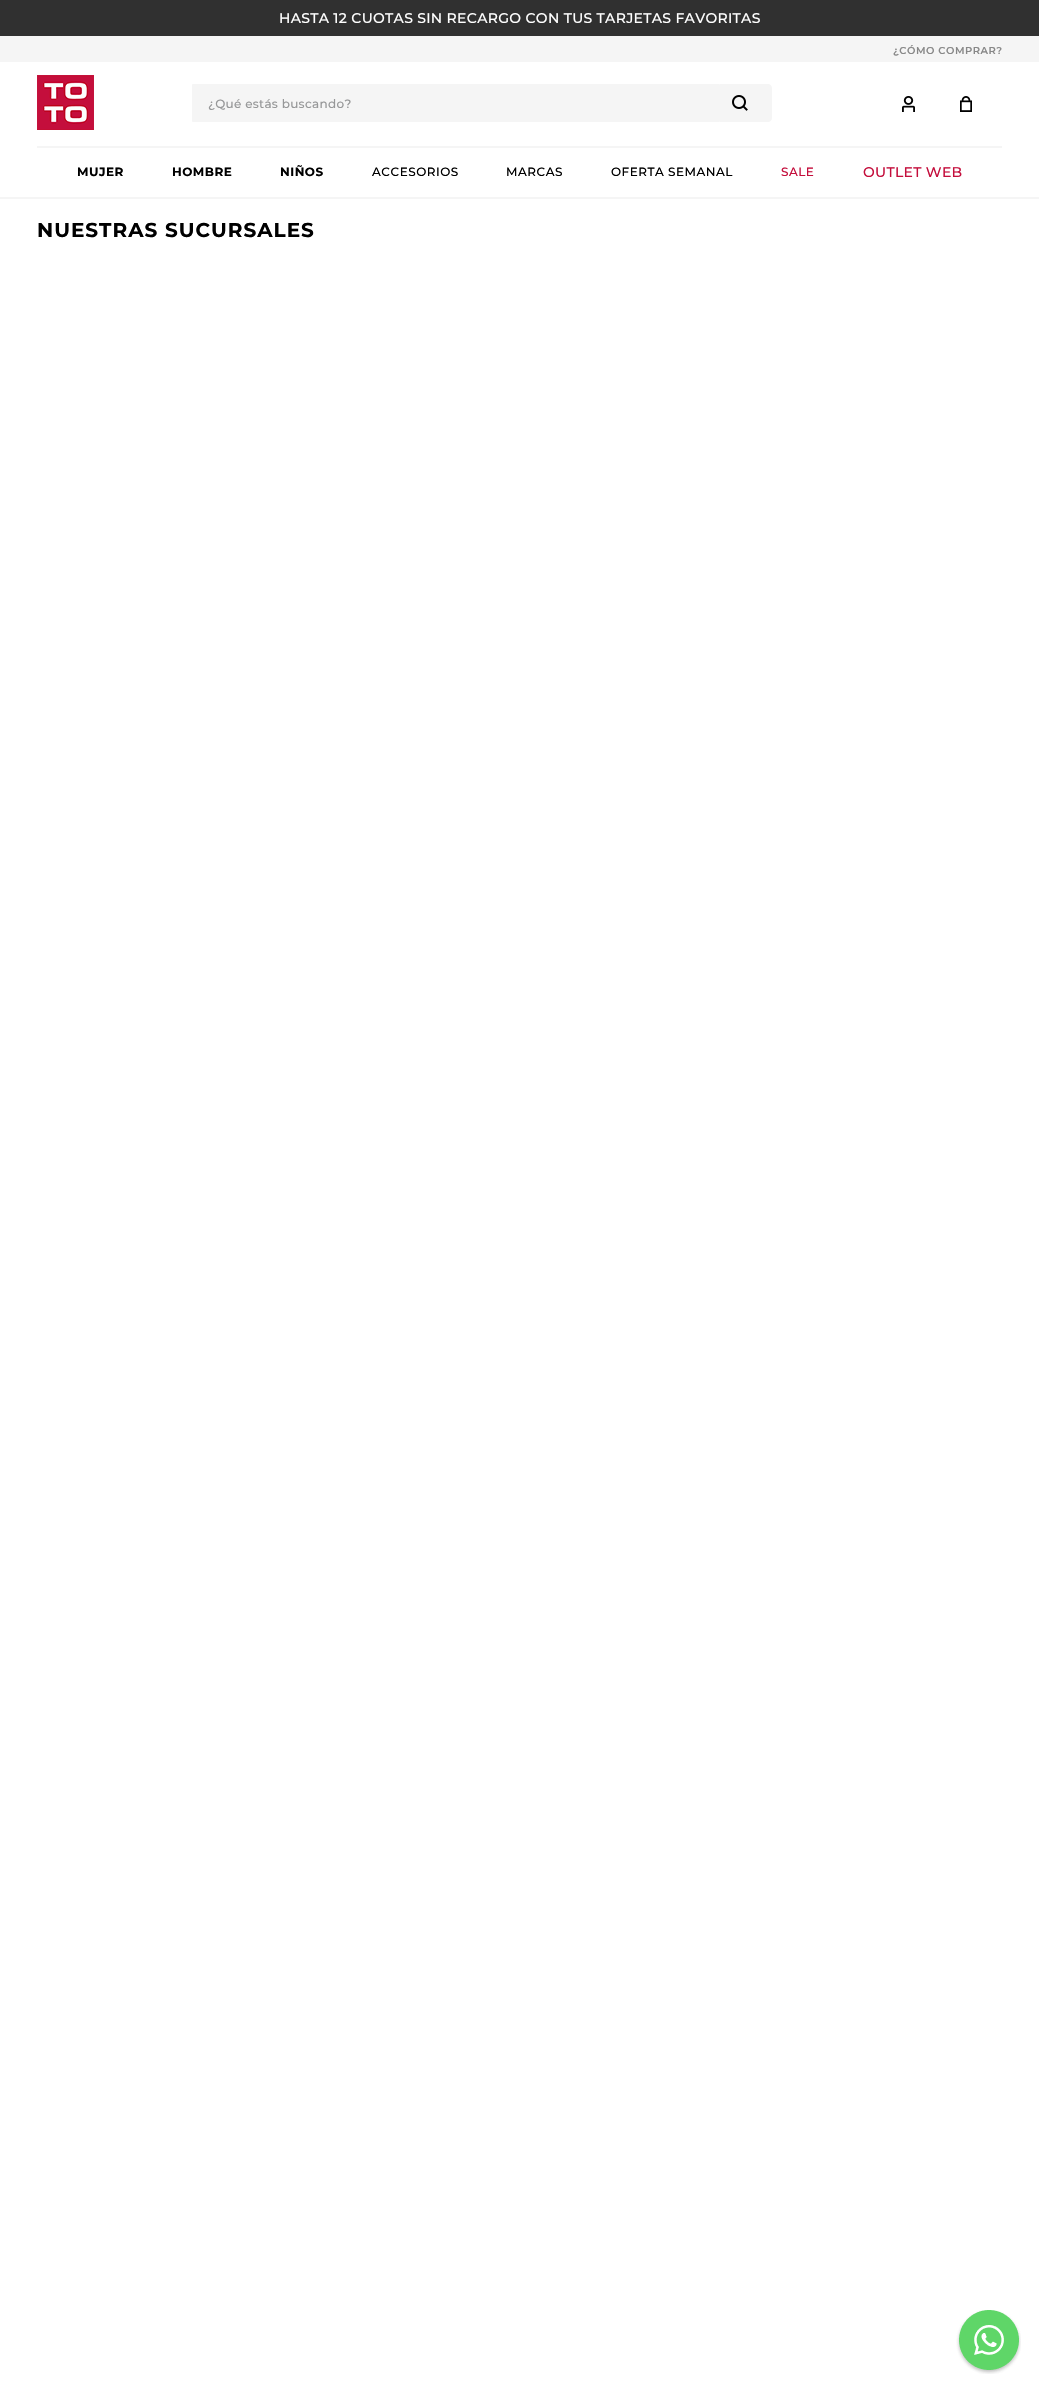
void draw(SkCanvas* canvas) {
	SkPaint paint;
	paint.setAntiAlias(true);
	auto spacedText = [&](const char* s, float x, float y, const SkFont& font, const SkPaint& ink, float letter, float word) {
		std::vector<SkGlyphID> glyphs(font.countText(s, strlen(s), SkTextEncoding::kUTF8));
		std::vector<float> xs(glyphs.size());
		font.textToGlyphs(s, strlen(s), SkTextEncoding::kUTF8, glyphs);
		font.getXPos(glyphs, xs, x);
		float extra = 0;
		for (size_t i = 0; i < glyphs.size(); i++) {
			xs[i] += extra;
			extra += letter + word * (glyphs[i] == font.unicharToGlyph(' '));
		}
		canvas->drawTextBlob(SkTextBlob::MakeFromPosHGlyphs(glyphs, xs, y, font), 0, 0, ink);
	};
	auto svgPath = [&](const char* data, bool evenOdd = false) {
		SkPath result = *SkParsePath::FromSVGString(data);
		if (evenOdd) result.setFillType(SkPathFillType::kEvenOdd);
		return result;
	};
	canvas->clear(0xffffffff);
	paint.setColor(0xff303030);
	canvas->drawRect(SkRect::MakeXYWH(0, 0, 1039, 36), paint);
	SkFont f1(fontMgr->matchFamilyStyle("Montserrat", SkFontStyle(500, SkFontStyle::kNormal_Width, SkFontStyle::kUpright_Slant)), 14);
	f1.setSubpixel(true);
	paint.setColor(0xffffffff);
	spacedText("HASTA 12 CUOTAS SIN RECARGO CON TUS TARJETAS FAVORITAS", 279, 23, f1, paint, 0.3, 0);
	paint.setColor(0xfff5f5f5);
	canvas->drawRect(SkRect::MakeXYWH(0, 36, 1039, 26), paint);
	SkFont f2(fontMgr->matchFamilyStyle("Montserrat", SkFontStyle(600, SkFontStyle::kNormal_Width, SkFontStyle::kUpright_Slant)), 10);
	f2.setSubpixel(true);
	paint.setColor(0xff888888);
	spacedText("¿CÓMO COMPRAR?", 893, 54, f2, paint, 0.5, 0);
	canvas->drawImageRect(SkImages::DeferredFromEncodedData(SkData::MakeFromFileName("img1.png")), SkRect::MakeXYWH(37, 75, 57, 55), SkSamplingOptions());
	paint.setColor(0xfff5f5f5);
	canvas->drawRoundRect(SkRect::MakeXYWH(192, 84, 528, 38), 1, 1, paint);
	SkFont f3(fontMgr->matchFamilyStyle("Montserrat", SkFontStyle(500, SkFontStyle::kNormal_Width, SkFontStyle::kUpright_Slant)), 12);
	f3.setSubpixel(true);
	paint.setColor(0xff979899);
	spacedText("¿Qué estás buscando?", 208, 108, f3, paint, 0.3, 0);
	paint.setColor(0xfff5f5f5);
	canvas->drawPath(svgPath("M720 84H768C770 84 772 86 772 88V118C772 120 770 122 768 122H720Z"), paint);
	canvas->drawImageRect(SkImages::DeferredFromEncodedData(SkData::MakeFromFileName("img2.png")), SkRect::MakeXYWH(732, 95, 16, 16), SkSamplingOptions());
	canvas->drawImageRect(SkImages::DeferredFromEncodedData(SkData::MakeFromFileName("img3.png")), SkRect::MakeXYWH(902, 96, 13, 16), SkSamplingOptions());
	canvas->drawImageRect(SkImages::DeferredFromEncodedData(SkData::MakeFromFileName("img4.png")), SkRect::MakeXYWH(960, 96, 12, 16), SkSamplingOptions());
	canvas->drawRect(SkRect::MakeXYWH(0, 197, 1039, 2), paint);
	canvas->drawRect(SkRect::MakeXYWH(37, 146, 965, 2), paint);
	SkFont f4(fontMgr->matchFamilyStyle("Montserrat", SkFontStyle::Bold()), 12);
	f4.setSubpixel(true);
	paint.setColor(0xff000000);
	spacedText("MUJER", 77, 176, f4, paint, 0.5, 0);
	spacedText("HOMBRE", 172, 176, f4, paint, 0.5, 0);
	spacedText("NIÑOS", 280, 176, f4, paint, 0.5, 0);
	spacedText("ACCESORIOS", 372, 176, f3, paint, 0.5, 0);
	spacedText("MARCAS", 506, 176, f3, paint, 0.5, 0);
	spacedText("OFERTA SEMANAL", 611, 176, f3, paint, 0.5, 0);
	paint.setColor(0xffc40e3c);
	spacedText("SALE", 781, 176, f3, paint, 0.5, 0);
	spacedText("OUTLET WEB", 863, 177, f1, paint, 0.3, 0);
	SkFont f5(fontMgr->matchFamilyStyle("Montserrat", SkFontStyle::Bold()), 20);
	f5.setSubpixel(true);
	paint.setColor(0xff000000);
	spacedText("NUESTRAS SUCURSALES", 37, 237, f5, paint, 1, 0);
	canvas->drawImageRect(SkImages::DeferredFromEncodedData(SkData::MakeFromFileName("img5.png")), SkRect::MakeXYWH(956, 2310, 65, 64), SkSamplingOptions());
}
